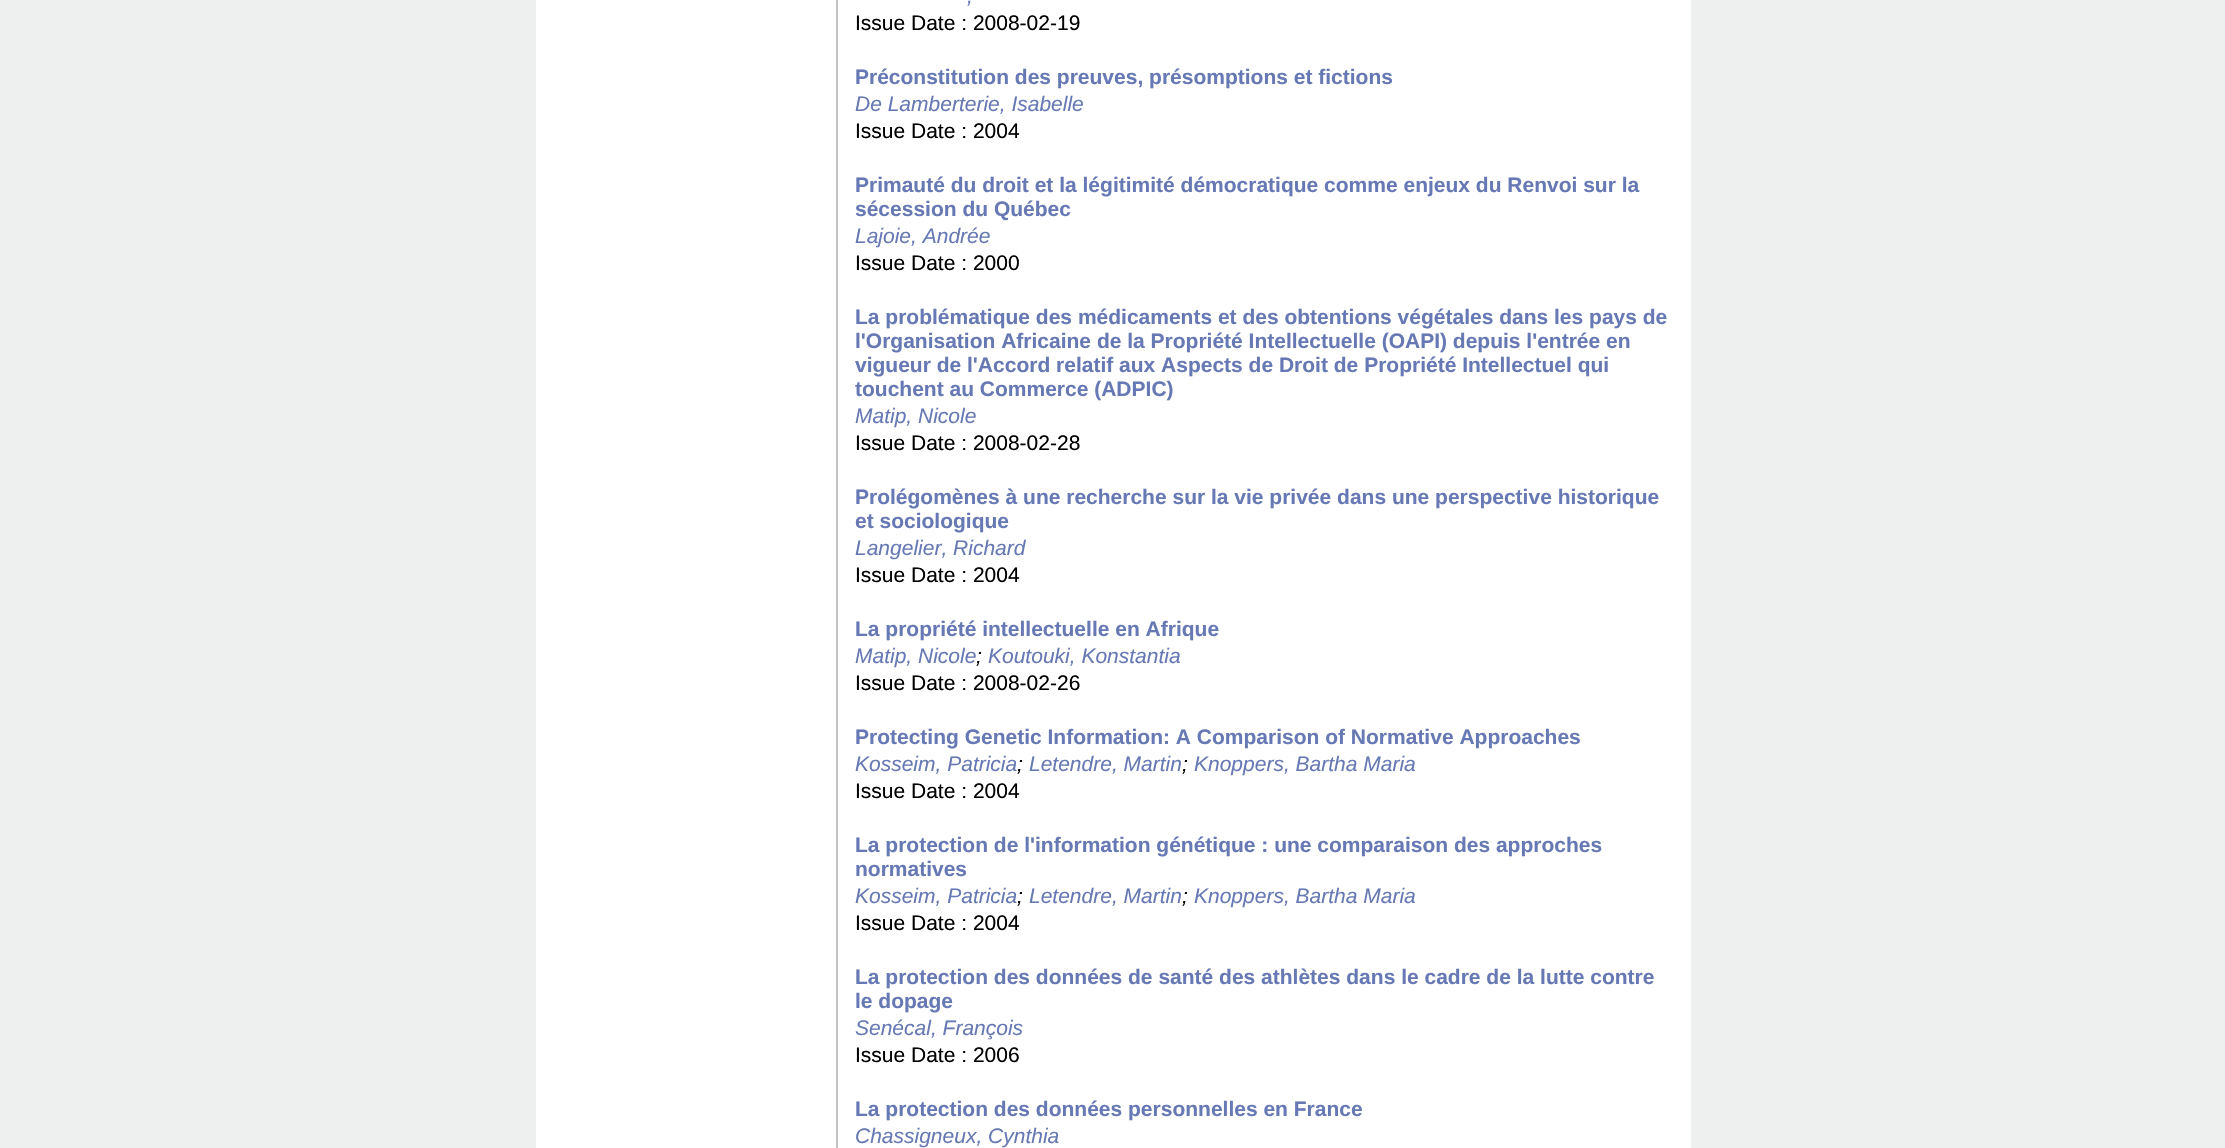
void draw(SkCanvas* canvas) {
	SkPaint paint;
	paint.setAntiAlias(true);
	canvas->clear(0xffeeefef);
	paint.setColor(0xffffffff);
	canvas->drawRect(SkRect::MakeXYWH(536, 0, 1155, 1148), paint);
	paint.setColor(0xffc3c3c3);
	canvas->drawRect(SkRect::MakeXYWH(836, 0, 2, 1148), paint);
	SkFont f1(fontMgr->matchFamilyStyle("Liberation Sans", SkFontStyle::Italic()), 21);
	f1.setSubpixel(true);
	paint.setColor(0xff6779b4);
	canvas->drawString(",", 967, 3, f1, paint);
	SkFont f2(fontMgr->matchFamilyStyle("Liberation Sans", SkFontStyle::Normal()), 21);
	f2.setSubpixel(true);
	paint.setColor(0xff000000);
	canvas->drawString("Issue Date : 2008-02-19", 855, 30, f2, paint);
	SkFont f3(fontMgr->matchFamilyStyle("Liberation Sans", SkFontStyle::Bold()), 21);
	f3.setSubpixel(true);
	paint.setColor(0xff6779b4);
	canvas->drawString("Préconstitution des preuves, présomptions et fictions", 855, 84, f3, paint);
	canvas->drawString("De Lamberterie, Isabelle", 855, 111, f1, paint);
	paint.setColor(0xff000000);
	canvas->drawString("Issue Date : 2004", 855, 138, f2, paint);
	paint.setColor(0xff6779b4);
	canvas->drawString("Primauté du droit et la légitimité démocratique comme enjeux du Renvoi sur la", 855, 192, f3, paint);
	canvas->drawString("sécession du Québec", 855, 216, f3, paint);
	canvas->drawString("Lajoie, Andrée", 855, 243, f1, paint);
	paint.setColor(0xff000000);
	canvas->drawString("Issue Date : 2000", 855, 270, f2, paint);
	paint.setColor(0xff6779b4);
	canvas->drawString("La problématique des médicaments et des obtentions végétales dans les pays de", 855, 324, f3, paint);
	canvas->drawString("l'Organisation Africaine de la Propriété Intellectuelle (OAPI) depuis l'entrée en", 855, 348, f3, paint);
	canvas->drawString("vigueur de l'Accord relatif aux Aspects de Droit de Propriété Intellectuel qui", 855, 372, f3, paint);
	canvas->drawString("touchent au Commerce (ADPIC)", 855, 396, f3, paint);
	canvas->drawString("Matip, Nicole", 855, 423, f1, paint);
	paint.setColor(0xff000000);
	canvas->drawString("Issue Date : 2008-02-28", 855, 450, f2, paint);
	paint.setColor(0xff6779b4);
	canvas->drawString("Prolégomènes à une recherche sur la vie privée dans une perspective historique", 855, 504, f3, paint);
	canvas->drawString("et sociologique", 855, 528, f3, paint);
	canvas->drawString("Langelier, Richard", 855, 555, f1, paint);
	paint.setColor(0xff000000);
	canvas->drawString("Issue Date : 2004", 855, 582, f2, paint);
	paint.setColor(0xff6779b4);
	canvas->drawString("La propriété intellectuelle en Afrique", 855, 636, f3, paint);
	canvas->drawString("Matip, Nicole", 855, 663, f1, paint);
	paint.setColor(0xff000000);
	canvas->drawString(";", 976, 663, f1, paint);
	paint.setColor(0xff6779b4);
	canvas->drawString("Koutouki, Konstantia", 988, 663, f1, paint);
	paint.setColor(0xff000000);
	canvas->drawString("Issue Date : 2008-02-26", 855, 690, f2, paint);
	paint.setColor(0xff6779b4);
	canvas->drawString("Protecting Genetic Information: A Comparison of Normative Approaches", 855, 744, f3, paint);
	canvas->drawString("Kosseim, Patricia", 855, 771, f1, paint);
	paint.setColor(0xff000000);
	canvas->drawString(";", 1017, 771, f1, paint);
	paint.setColor(0xff6779b4);
	canvas->drawString("Letendre, Martin", 1029, 771, f1, paint);
	paint.setColor(0xff000000);
	canvas->drawString(";", 1182, 771, f1, paint);
	paint.setColor(0xff6779b4);
	canvas->drawString("Knoppers, Bartha Maria", 1194, 771, f1, paint);
	paint.setColor(0xff000000);
	canvas->drawString("Issue Date : 2004", 855, 798, f2, paint);
	paint.setColor(0xff6779b4);
	canvas->drawString("La protection de l'information génétique : une comparaison des approches", 855, 852, f3, paint);
	canvas->drawString("normatives", 855, 876, f3, paint);
	canvas->drawString("Kosseim, Patricia", 855, 903, f1, paint);
	paint.setColor(0xff000000);
	canvas->drawString(";", 1017, 903, f1, paint);
	paint.setColor(0xff6779b4);
	canvas->drawString("Letendre, Martin", 1029, 903, f1, paint);
	paint.setColor(0xff000000);
	canvas->drawString(";", 1182, 903, f1, paint);
	paint.setColor(0xff6779b4);
	canvas->drawString("Knoppers, Bartha Maria", 1194, 903, f1, paint);
	paint.setColor(0xff000000);
	canvas->drawString("Issue Date : 2004", 855, 930, f2, paint);
	paint.setColor(0xff6779b4);
	canvas->drawString("La protection des données de santé des athlètes dans le cadre de la lutte contre", 855, 984, f3, paint);
	canvas->drawString("le dopage", 855, 1008, f3, paint);
	canvas->drawString("Senécal, François", 855, 1035, f1, paint);
	paint.setColor(0xff000000);
	canvas->drawString("Issue Date : 2006", 855, 1062, f2, paint);
	paint.setColor(0xff6779b4);
	canvas->drawString("La protection des données personnelles en France", 855, 1116, f3, paint);
	canvas->drawString("Chassigneux, Cynthia", 855, 1143, f1, paint);
}
